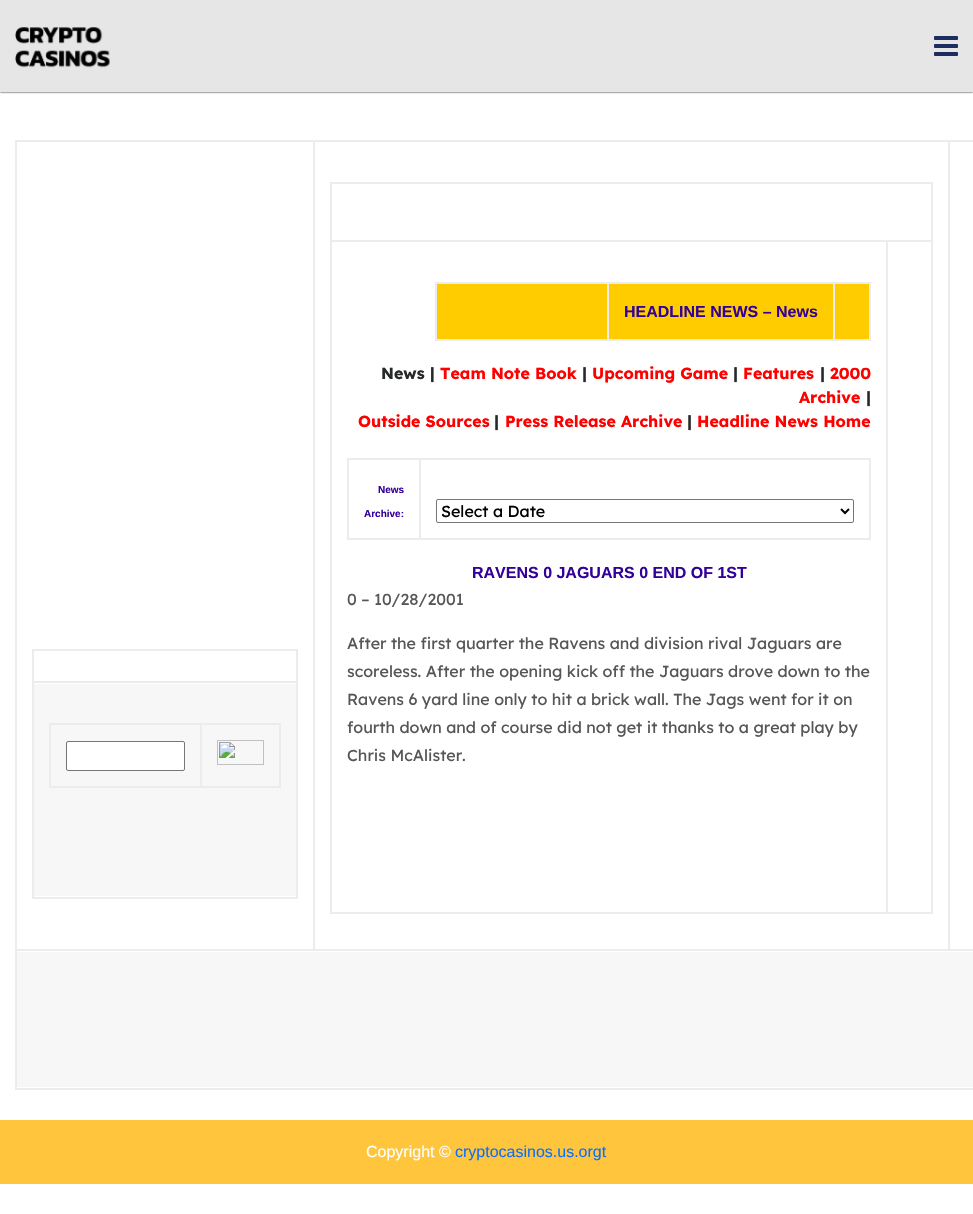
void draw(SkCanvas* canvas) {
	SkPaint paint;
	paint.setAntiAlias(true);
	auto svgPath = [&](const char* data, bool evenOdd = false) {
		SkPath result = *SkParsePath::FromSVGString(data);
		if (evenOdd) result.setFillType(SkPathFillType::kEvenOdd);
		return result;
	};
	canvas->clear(0xffffffff);
	paint.setColor(0xff000000);
	paint.setMaskFilter(SkMaskFilter::MakeBlur(kNormal_SkBlurStyle, 1));
	canvas->drawRect(SkRect::MakeXYWH(0, 0, 973, 92), paint);
	paint.setMaskFilter(nullptr);
	paint.setColor(0xffe6e6e6);
	canvas->drawRect(SkRect::MakeXYWH(0, 0, 973, 92), paint);
	canvas->drawImageRect(SkImages::DeferredFromEncodedData(SkData::MakeFromFileName("img1.png")), SkRect::MakeXYWH(15, 27, 95, 41), SkSamplingOptions());
	canvas->drawImageRect(SkImages::DeferredFromEncodedData(SkData::MakeFromFileName("img2.png")), SkRect::MakeXYWH(934, 36, 24, 20), SkSamplingOptions());
	paint.setColor(0xffececec);
	canvas->drawRect(SkRect::MakeXYWH(15, 140, 958, 2), paint);
	canvas->drawRect(SkRect::MakeXYWH(15, 1088, 958, 2), paint);
	canvas->drawRect(SkRect::MakeXYWH(15, 140, 2, 950), paint);
	canvas->drawRect(SkRect::MakeXYWH(32, 649, 266, 2), paint);
	canvas->drawRect(SkRect::MakeXYWH(296, 649, 2, 250), paint);
	canvas->drawRect(SkRect::MakeXYWH(32, 897, 266, 2), paint);
	canvas->drawRect(SkRect::MakeXYWH(32, 649, 2, 250), paint);
	paint.setColor(0xfff7f7f7);
	canvas->drawRect(SkRect::MakeXYWH(34, 684, 262, 212), paint);
	paint.setColor(0xffececec);
	canvas->drawRect(SkRect::MakeXYWH(32, 681, 266, 2), paint);
	canvas->drawRect(SkRect::MakeXYWH(49, 723, 232, 2), paint);
	canvas->drawRect(SkRect::MakeXYWH(279, 723, 2, 65), paint);
	canvas->drawRect(SkRect::MakeXYWH(49, 786, 232, 2), paint);
	canvas->drawRect(SkRect::MakeXYWH(49, 723, 2, 65), paint);
	paint.setColor(0xffffffff);
	canvas->drawRoundRect(SkRect::MakeXYWH(66.5, 741.5, 118, 29), 1.5, 1.5, paint);
	paint.setStroke(true);
	paint.setStrokeWidth(1);
	paint.setColor(0xff767676);
	canvas->drawRoundRect(SkRect::MakeXYWH(66.5, 741.5, 118, 29), 1.5, 1.5, paint);
	paint.setStroke(false);
	paint.setColor(0xffececec);
	canvas->drawRect(SkRect::MakeXYWH(200, 723, 2, 65), paint);
	canvas->drawImageRect(SkImages::DeferredFromEncodedData(SkData::MakeFromFileName("img3.png")), SkRect::MakeXYWH(217, 740, 47, 25), SkSamplingOptions());
	canvas->drawRect(SkRect::MakeXYWH(15, 949, 958, 2), paint);
	canvas->drawRect(SkRect::MakeXYWH(313, 140, 2, 811), paint);
	canvas->drawRect(SkRect::MakeXYWH(330, 182, 603, 2), paint);
	canvas->drawRect(SkRect::MakeXYWH(931, 182, 2, 732), paint);
	canvas->drawRect(SkRect::MakeXYWH(330, 912, 603, 2), paint);
	canvas->drawRect(SkRect::MakeXYWH(330, 182, 2, 732), paint);
	canvas->drawRect(SkRect::MakeXYWH(330, 240, 603, 2), paint);
	canvas->drawRect(SkRect::MakeXYWH(435, 282, 436, 2), paint);
	canvas->drawRect(SkRect::MakeXYWH(869, 282, 2, 59), paint);
	canvas->drawRect(SkRect::MakeXYWH(435, 339, 436, 2), paint);
	canvas->drawRect(SkRect::MakeXYWH(435, 282, 2, 59), paint);
	paint.setColor(0xffffcc00);
	canvas->drawRect(SkRect::MakeXYWH(437, 284, 170, 55), paint);
	canvas->drawRect(SkRect::MakeXYWH(609, 284, 224, 55), paint);
	paint.setColor(0xffececec);
	canvas->drawRect(SkRect::MakeXYWH(607, 282, 2, 59), paint);
	SkFont f1(fontMgr->matchFamilyStyle("Liberation Sans", SkFontStyle::Bold()), 16);
	f1.setSubpixel(true);
	paint.setColor(0xff330099);
	canvas->drawString("HEADLINE NEWS – News", 624, 317, f1, paint);
	paint.setColor(0xffffcc00);
	canvas->drawRect(SkRect::MakeXYWH(835, 284, 34, 55), paint);
	paint.setColor(0xffececec);
	canvas->drawRect(SkRect::MakeXYWH(833, 282, 2, 59), paint);
	SkFont f2(fontMgr->matchFamilyStyle("Lexend", SkFontStyle::Bold()), 16);
	f2.setSubpixel(true);
	paint.setColor(0xff272829);
	canvas->drawString("News |", 381, 379, f2, paint);
	paint.setColor(0xffff0000);
	canvas->drawString("Team Note Book", 440, 379, f2, paint);
	paint.setColor(0xff272829);
	canvas->drawString("|", 582, 379, f2, paint);
	paint.setColor(0xffff0000);
	canvas->drawString("Upcoming Game", 592, 379, f2, paint);
	paint.setColor(0xff272829);
	canvas->drawString("|", 733, 379, f2, paint);
	paint.setColor(0xffff0000);
	canvas->drawString("Features", 743, 379, f2, paint);
	paint.setColor(0xff272829);
	canvas->drawString("|", 820, 379, f2, paint);
	paint.setColor(0xffff0000);
	canvas->drawString("2000", 830, 379, f2, paint);
	canvas->drawString("Archive", 799, 403, f2, paint);
	paint.setColor(0xff272829);
	canvas->drawString("|", 866, 403, f2, paint);
	paint.setColor(0xffff0000);
	canvas->drawString("Outside Sources", 358, 427, f2, paint);
	paint.setColor(0xff272829);
	canvas->drawString("|", 494, 427, f2, paint);
	paint.setColor(0xffff0000);
	canvas->drawString("Press Release Archive", 505, 427, f2, paint);
	paint.setColor(0xff272829);
	canvas->drawString("|", 687, 427, f2, paint);
	paint.setColor(0xffff0000);
	canvas->drawString("Headline News Home", 697, 427, f2, paint);
	paint.setColor(0xffececec);
	canvas->drawRect(SkRect::MakeXYWH(347, 458, 524, 2), paint);
	canvas->drawRect(SkRect::MakeXYWH(869, 458, 2, 82), paint);
	canvas->drawRect(SkRect::MakeXYWH(347, 538, 524, 2), paint);
	canvas->drawRect(SkRect::MakeXYWH(347, 458, 2, 82), paint);
	SkFont f3(fontMgr->matchFamilyStyle("Liberation Sans", SkFontStyle::Bold()), 10);
	f3.setSubpixel(true);
	paint.setColor(0xff330099);
	canvas->drawString("News", 378, 493, f3, paint);
	canvas->drawString("Archive:", 364, 517, f3, paint);
	paint.setColor(0xffececec);
	canvas->drawRect(SkRect::MakeXYWH(419, 458, 2, 82), paint);
	paint.setStroke(true);
	paint.setColor(0xff767676);
	canvas->drawRoundRect(SkRect::MakeXYWH(436.5, 499.5, 417, 23), 1.5, 1.5, paint);
	paint.setStrokeWidth(2);
	paint.setColor(0xff000000);
	canvas->drawPath(svgPath("M841 509L845 513L849 509"), paint);
	SkFont f4(fontMgr->matchFamilyStyle("Lexend", SkFontStyle::Normal()), 16);
	f4.setSubpixel(true);
	paint.setStroke(false);
	canvas->drawString("Select a Date", 441, 517, f4, paint);
	paint.setColor(0xff330099);
	canvas->drawString("RAVENS 0 JAGUARS 0 END OF 1ST", 472, 578, f1, paint);
	paint.setColor(0xff565656);
	canvas->drawString("0 – 10/28/2001", 347, 605, f4, paint);
	canvas->drawString("After the first quarter the Ravens and division rival Jaguars are", 347, 649, f4, paint);
	canvas->drawString("scoreless. After the opening kick off the Jaguars drove down to the", 347, 677, f4, paint);
	canvas->drawString("Ravens 6 yard line only to hit a brick wall. The Jags went for it on", 347, 705, f4, paint);
	canvas->drawString("fourth down and of course did not get it thanks to a great play by", 347, 733, f4, paint);
	canvas->drawString("Chris McAlister.", 347, 761, f4, paint);
	paint.setColor(0xffececec);
	canvas->drawRect(SkRect::MakeXYWH(886, 240, 2, 674), paint);
	canvas->drawRect(SkRect::MakeXYWH(948, 140, 2, 811), paint);
	paint.setColor(0xfff7f7f7);
	canvas->drawRect(SkRect::MakeXYWH(17, 952, 956, 135), paint);
	paint.setColor(0xffffc53d);
	canvas->drawRect(SkRect::MakeXYWH(0, 1120, 973, 64), paint);
	SkFont f5(fontMgr->matchFamilyStyle("Liberation Sans", SkFontStyle::Normal()), 16);
	f5.setSubpixel(true);
	paint.setColor(0xffffffff);
	canvas->drawString("Copyright ©", 366, 1157, f5, paint);
	paint.setColor(0xff0d6efd);
	canvas->drawString("cryptocasinos.us.orgt", 455, 1157, f5, paint);
}
